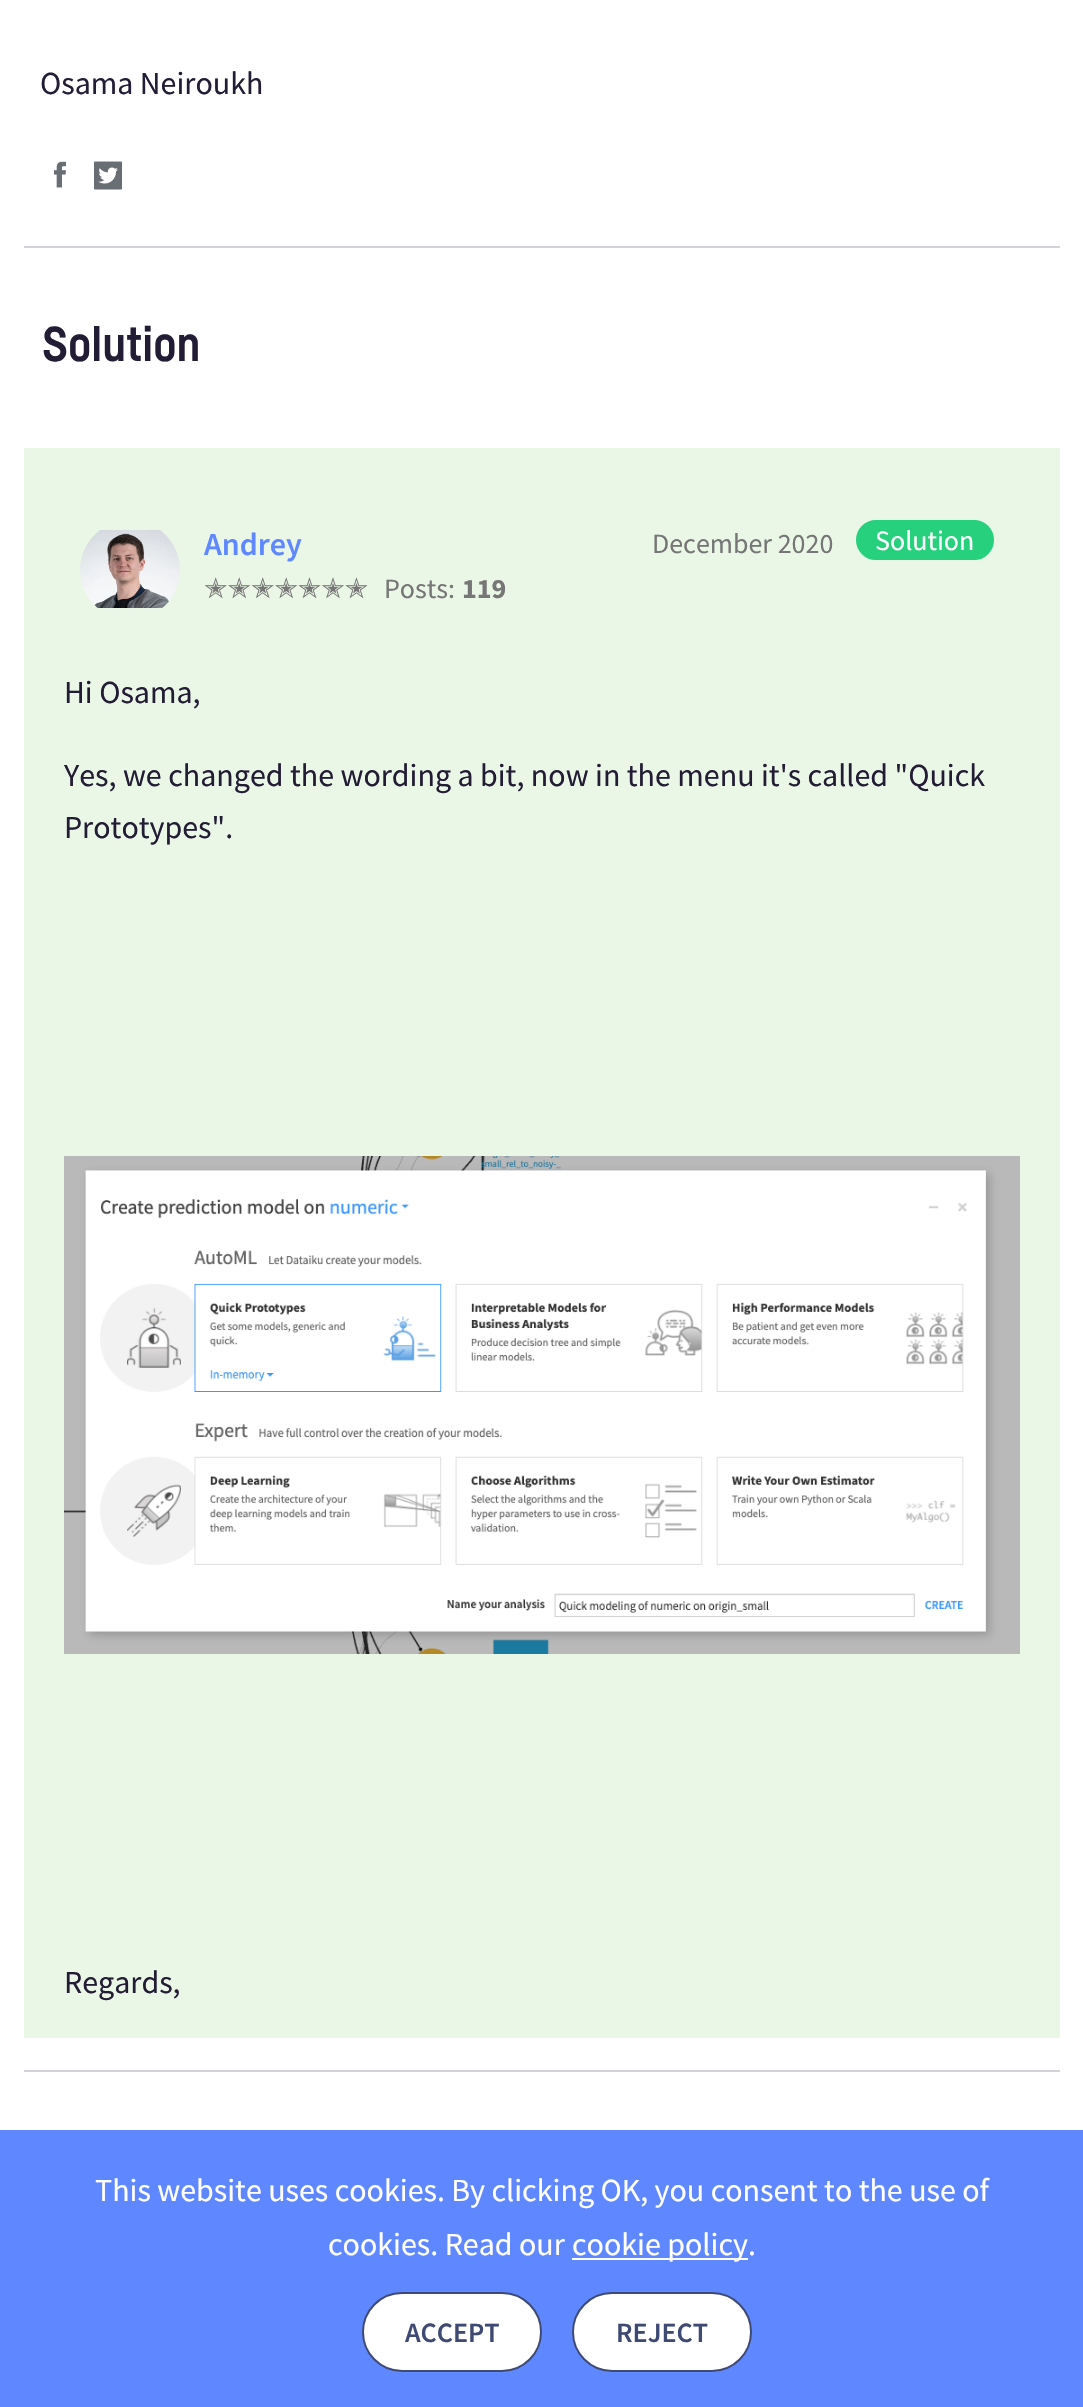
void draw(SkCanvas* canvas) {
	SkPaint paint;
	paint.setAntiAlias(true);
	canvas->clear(0xffffffff);
	SkFont f1(fontMgr->matchFamilyStyle("Source Sans Pro", SkFontStyle::Normal()), 32);
	f1.setSubpixel(true);
	paint.setColor(0xff221c35);
	canvas->drawString("Osama Neiroukh", 40, 94, f1, paint);
	canvas->drawImageRect(SkImages::DeferredFromEncodedData(SkData::MakeFromFileName("img1.png")), SkRect::MakeXYWH(54, 161, 12, 27), SkSamplingOptions());
	canvas->drawImageRect(SkImages::DeferredFromEncodedData(SkData::MakeFromFileName("img2.png")), SkRect::MakeXYWH(94, 161, 28, 29), SkSamplingOptions());
	paint.setColor(0xffd3d2d7);
	canvas->drawRect(SkRect::MakeXYWH(24, 246, 1036, 2), paint);
	paint.setColor(0xffebf7e6);
	canvas->drawRect(SkRect::MakeXYWH(24, 448, 1036, 1590), paint);
	SkFont f2(fontMgr->matchFamilyStyle("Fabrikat", SkFontStyle::Bold()), 48);
	f2.setSubpixel(true);
	paint.setColor(0xff221c35);
	canvas->drawString("Solution", 42, 361, f2, paint);
	canvas->drawImageRect(SkImages::DeferredFromEncodedData(SkData::MakeFromFileName("img3.png")), SkRect::MakeXYWH(80, 530, 100, 78), SkSamplingOptions());
	SkFont f3(fontMgr->matchFamilyStyle("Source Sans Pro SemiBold", SkFontStyle(600, SkFontStyle::kNormal_Width, SkFontStyle::kUpright_Slant)), 32);
	f3.setSubpixel(true);
	paint.setColor(0xff5f87ff);
	canvas->drawString("Andrey", 204, 555, f3, paint);
	SkFont f4(fontMgr->matchFamilyStyle("DejaVu Sans", SkFontStyle::Normal()), 28);
	f4.setSubpixel(true);
	paint.setColor(0xff767676);
	canvas->drawString("✭✭✭✭✭✭✭", 204, 598, f4, paint);
	SkFont f5(fontMgr->matchFamilyStyle("Source Sans Pro", SkFontStyle::Normal()), 28);
	f5.setSubpixel(true);
	canvas->drawString("Posts:", 384, 598, f5, paint);
	SkFont f6(fontMgr->matchFamilyStyle("Source Sans Pro", SkFontStyle::Bold()), 28);
	f6.setSubpixel(true);
	canvas->drawString("119", 462, 598, f6, paint);
	canvas->drawString("December 2020", 652, 553, f5, paint);
	paint.setColor(0xff26d07c);
	canvas->drawRoundRect(SkRect::MakeXYWH(857, 521, 136, 38), 19, 19, paint);
	paint.setStroke(true);
	paint.setStrokeWidth(2);
	canvas->drawRoundRect(SkRect::MakeXYWH(857, 521, 136, 38), 19, 19, paint);
	paint.setStroke(false);
	paint.setColor(0xffffffff);
	canvas->drawString("Solution", 875, 550, f5, paint);
	paint.setColor(0xff221c35);
	canvas->drawString("Hi Osama,", 64, 703, f1, paint);
	canvas->drawString("Yes, we changed the wording a bit, now in the menu it's called \"Quick", 64, 786, f1, paint);
	canvas->drawString("Prototypes\".", 64, 838, f1, paint);
	canvas->drawImageRect(SkImages::DeferredFromEncodedData(SkData::MakeFromFileName("img4.png")), SkRect::MakeXYWH(64, 1156, 956, 498), SkSamplingOptions());
	canvas->drawString("Regards,", 64, 1993, f1, paint);
	paint.setColor(0xffd3d2d7);
	canvas->drawRect(SkRect::MakeXYWH(24, 2070, 1036, 2), paint);
	paint.setColor(0xff5f87ff);
	canvas->drawRect(SkRect::MakeXYWH(0, 2130, 1083, 277), paint);
	paint.setColor(0xffffffff);
	canvas->drawString("This website uses cookies. By clicking OK, you consent to the use of", 95, 2201, f1, paint);
	canvas->drawString("cookies. Read our", 328, 2255, f1, paint);
	canvas->drawRect(SkRect::MakeXYWH(572, 2258, 176, 2), paint);
	canvas->drawString("cookie policy.", 572, 2255, f1, paint);
	canvas->drawRoundRect(SkRect::MakeXYWH(363, 2293, 178, 78), 39, 39, paint);
	paint.setStroke(true);
	paint.setColor(0xff3f4a74);
	canvas->drawRoundRect(SkRect::MakeXYWH(363, 2293, 178, 78), 39, 39, paint);
	SkFont f7(fontMgr->matchFamilyStyle("Source Sans Pro SemiBold", SkFontStyle(600, SkFontStyle::kNormal_Width, SkFontStyle::kUpright_Slant)), 28);
	f7.setSubpixel(true);
	paint.setStroke(false);
	canvas->drawString("ACCEPT", 405, 2342, f7, paint);
	paint.setColor(0xffffffff);
	canvas->drawRoundRect(SkRect::MakeXYWH(573, 2293, 178, 78), 39, 39, paint);
	paint.setStroke(true);
	paint.setColor(0xff3f4a74);
	canvas->drawRoundRect(SkRect::MakeXYWH(573, 2293, 178, 78), 39, 39, paint);
	paint.setStroke(false);
	canvas->drawString("REJECT", 616, 2342, f7, paint);
}
